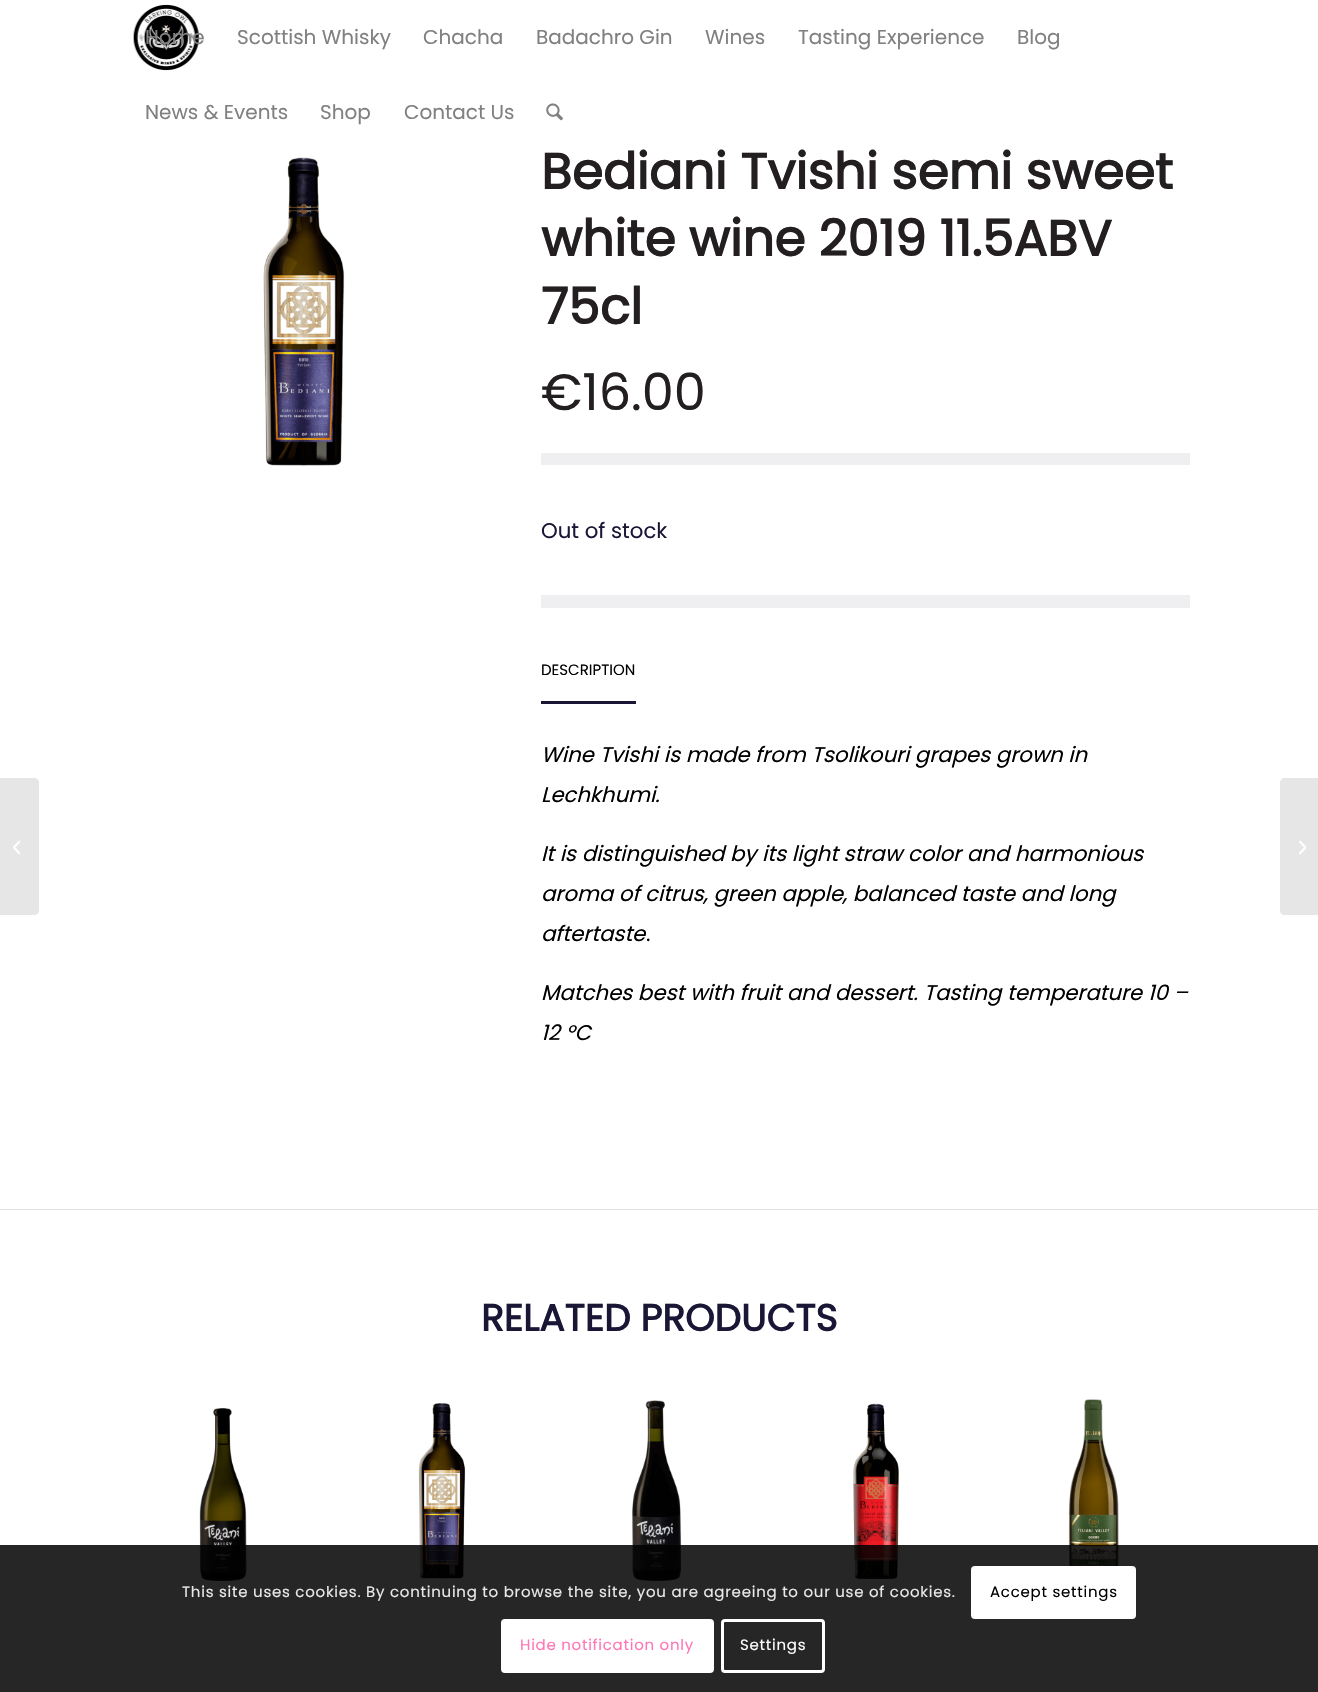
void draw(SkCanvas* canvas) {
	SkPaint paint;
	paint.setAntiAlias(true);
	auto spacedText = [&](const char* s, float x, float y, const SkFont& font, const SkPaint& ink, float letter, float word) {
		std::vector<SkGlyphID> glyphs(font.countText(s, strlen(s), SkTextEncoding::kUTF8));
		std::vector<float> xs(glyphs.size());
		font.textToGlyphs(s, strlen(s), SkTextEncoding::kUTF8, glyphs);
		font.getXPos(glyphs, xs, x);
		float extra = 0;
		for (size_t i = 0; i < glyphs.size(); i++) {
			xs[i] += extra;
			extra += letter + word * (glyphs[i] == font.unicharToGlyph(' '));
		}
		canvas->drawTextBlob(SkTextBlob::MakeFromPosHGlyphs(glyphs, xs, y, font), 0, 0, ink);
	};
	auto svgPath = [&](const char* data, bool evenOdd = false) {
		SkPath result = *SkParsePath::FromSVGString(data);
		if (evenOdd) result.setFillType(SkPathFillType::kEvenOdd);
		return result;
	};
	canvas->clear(0xffffffff);
	paint.setColor(0xffe6e6e6);
	canvas->drawPath(svgPath("M0 778H34C37 778 39 780 39 783V910C39 913 37 915 34 915H0Z"), paint);
	canvas->drawImageRect(SkImages::DeferredFromEncodedData(SkData::MakeFromFileName("img1.png")), SkRect::MakeXYWH(13, 840, 7, 15), SkSamplingOptions());
	canvas->drawImageRect(SkImages::DeferredFromEncodedData(SkData::MakeFromFileName("img2.png")), SkRect::MakeXYWH(133, 4, 67, 67), SkSamplingOptions());
	SkFont f1(fontMgr->matchFamilyStyle("Poppins", SkFontStyle::Normal()), 20);
	f1.setSubpixel(true);
	paint.setColor(0xff808080);
	canvas->drawString("Home", 145, 44, f1, paint);
	canvas->drawString("Scottish Whisky", 237, 44, f1, paint);
	canvas->drawString("Chacha", 423, 44, f1, paint);
	canvas->drawString("Badachro Gin", 536, 44, f1, paint);
	canvas->drawString("Wines", 705, 44, f1, paint);
	canvas->drawString("Tasting Experience", 798, 44, f1, paint);
	canvas->drawString("Blog", 1017, 44, f1, paint);
	canvas->drawString("News & Events", 145, 119, f1, paint);
	canvas->drawString("Shop", 320, 119, f1, paint);
	canvas->drawString("Contact Us", 404, 119, f1, paint);
	canvas->drawImageRect(SkImages::DeferredFromEncodedData(SkData::MakeFromFileName("img3.png")), SkRect::MakeXYWH(546, 103, 17, 18), SkSamplingOptions());
	canvas->drawImageRect(SkImages::DeferredFromEncodedData(SkData::MakeFromFileName("img4.png")), SkRect::MakeXYWH(263, 157, 82, 309), SkSamplingOptions());
	SkFont f2(fontMgr->matchFamilyStyle("Poppins", SkFontStyle::Bold()), 50);
	f2.setSubpixel(true);
	paint.setColor(0xff231f20);
	canvas->drawString("Bediani Tvishi semi sweet", 541, 189, f2, paint);
	canvas->drawString("white wine 2019 11.5ABV", 541, 256, f2, paint);
	canvas->drawString("75cl", 541, 324, f2, paint);
	SkFont f3(fontMgr->matchFamilyStyle("Poppins", SkFontStyle::Normal()), 51);
	f3.setSubpixel(true);
	canvas->drawString("€16.00", 541, 410, f3, paint);
	paint.setColor(0xffefeff1);
	canvas->drawRect(SkRect::MakeXYWH(541, 453, 649, 12), paint);
	SkFont f4(fontMgr->matchFamilyStyle("Poppins", SkFontStyle::Normal()), 21.25);
	f4.setSubpixel(true);
	paint.setColor(0xff1a1736);
	canvas->drawString("Out of stock", 541, 538, f4, paint);
	paint.setColor(0xffefeff1);
	canvas->drawRect(SkRect::MakeXYWH(541, 595, 649, 13), paint);
	paint.setColor(0xff1a1736);
	canvas->drawRect(SkRect::MakeXYWH(541, 701, 95, 3), paint);
	SkFont f5(fontMgr->matchFamilyStyle("Poppins", SkFontStyle::Normal()), 15);
	f5.setSubpixel(true);
	paint.setColor(0xff000000);
	canvas->drawString("DESCRIPTION", 541, 675, f5, paint);
	SkFont f6(fontMgr->matchFamilyStyle("Poppins", SkFontStyle::Italic()), 21.25);
	f6.setSubpixel(true);
	canvas->drawString("Wine Tvishi is made from Tsolikouri grapes grown in", 541, 762, f6, paint);
	canvas->drawString("Lechkhumi.", 541, 802, f6, paint);
	canvas->drawString("It is distinguished by its light straw color and harmonious", 541, 861, f6, paint);
	canvas->drawString("aroma of citrus, green apple, balanced taste and long", 541, 901, f6, paint);
	canvas->drawString("aftertaste", 541, 941, f6, paint);
	canvas->drawString(".", 646, 941, f4, paint);
	canvas->drawString("Matches best with fruit and dessert. Tasting temperature 10 –", 541, 1000, f6, paint);
	canvas->drawString("12 °C", 541, 1040, f6, paint);
	paint.setColor(0xffe1e1e1);
	canvas->drawRect(SkRect::MakeXYWH(0, 1209, 1318, 1), paint);
	SkFont f7(fontMgr->matchFamilyStyle("Poppins", SkFontStyle::Bold()), 37.5);
	f7.setSubpixel(true);
	paint.setColor(0xff1a1736);
	canvas->drawString("RELATED PRODUCTS", 481, 1331, f7, paint);
	canvas->drawImageRect(SkImages::DeferredFromEncodedData(SkData::MakeFromFileName("img5.png")), SkRect::MakeXYWH(199, 1408, 48, 174), SkSamplingOptions());
	canvas->drawImageRect(SkImages::DeferredFromEncodedData(SkData::MakeFromFileName("img6.png")), SkRect::MakeXYWH(418, 1403, 48, 176), SkSamplingOptions());
	canvas->drawImageRect(SkImages::DeferredFromEncodedData(SkData::MakeFromFileName("img7.png")), SkRect::MakeXYWH(632, 1400, 50, 181), SkSamplingOptions());
	canvas->drawImageRect(SkImages::DeferredFromEncodedData(SkData::MakeFromFileName("img8.png")), SkRect::MakeXYWH(853, 1403, 46, 177), SkSamplingOptions());
	canvas->drawImageRect(SkImages::DeferredFromEncodedData(SkData::MakeFromFileName("img9.png")), SkRect::MakeXYWH(1068, 1399, 51, 167), SkSamplingOptions());
	paint.setColor(0xffe6e6e6);
	canvas->drawPath(svgPath("M1285 778H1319V915H1285C1282 915 1280 913 1280 910V783C1280 780 1282 778 1285 778Z"), paint);
	canvas->drawImageRect(SkImages::DeferredFromEncodedData(SkData::MakeFromFileName("img10.png")), SkRect::MakeXYWH(1299, 840, 7, 15), SkSamplingOptions());
	paint.setColor(0xd9000000);
	canvas->drawRect(SkRect::MakeXYWH(0, 1545, 1318, 147), paint);
	paint.setColor(0xffe9e9e9);
	spacedText("This site uses cookies. By continuing to browse the site, you are agreeing to our use of cookies.", 182, 1597, f5, paint, 0.75, 0);
	paint.setColor(0xffffffff);
	canvas->drawRoundRect(SkRect::MakeXYWH(971, 1566, 165, 53), 4, 4, paint);
	paint.setColor(0xff000000);
	spacedText("Accept settings", 990, 1597, f5, paint, 0.75, 0);
	paint.setColor(0xffffffff);
	canvas->drawRoundRect(SkRect::MakeXYWH(502.5, 1620.5, 210, 51), 2.5, 2.5, paint);
	paint.setStroke(true);
	paint.setStrokeWidth(3);
	canvas->drawRoundRect(SkRect::MakeXYWH(502.5, 1620.5, 210, 51), 2.5, 2.5, paint);
	paint.setStroke(false);
	paint.setColor(0xffff75b5);
	spacedText("Hide notification only", 520, 1650, f5, paint, 0.75, 0);
	paint.setStroke(true);
	paint.setColor(0xffffffff);
	canvas->drawRoundRect(SkRect::MakeXYWH(722.5, 1620.5, 101, 51), 2.5, 2.5, paint);
	paint.setStroke(false);
	spacedText("Settings", 740, 1650, f5, paint, 0.75, 0);
}
